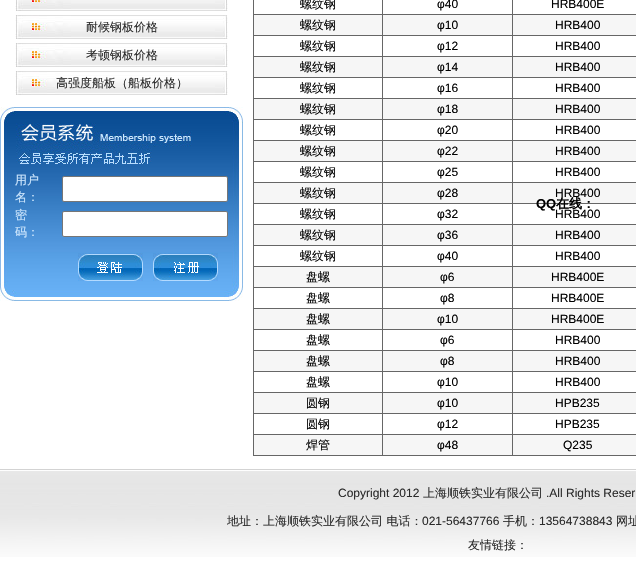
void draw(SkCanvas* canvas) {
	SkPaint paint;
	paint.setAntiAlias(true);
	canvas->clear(0xffffffff);
	canvas->drawImageRect(SkImages::DeferredFromEncodedData(SkData::MakeFromFileName("img1.png")), SkRect::MakeXYWH(15, 0, 213, 11), SkSamplingOptions());
	canvas->drawImageRect(SkImages::DeferredFromEncodedData(SkData::MakeFromFileName("img2.png")), SkRect::MakeXYWH(15, 15, 213, 24), SkSamplingOptions());
	SkFont f1(fontMgr->matchFamilyStyle("WenQuanYi Zen Hei", SkFontStyle(500, SkFontStyle::kNormal_Width, SkFontStyle::kUpright_Slant)), 12);
	f1.setSubpixel(true);
	paint.setColor(0xff2b2b2b);
	canvas->drawString("耐候钢板价格", 86, 31, f1, paint);
	canvas->drawImageRect(SkImages::DeferredFromEncodedData(SkData::MakeFromFileName("img2.png")), SkRect::MakeXYWH(15, 43, 213, 24), SkSamplingOptions());
	canvas->drawString("考顿钢板价格", 86, 59, f1, paint);
	canvas->drawImageRect(SkImages::DeferredFromEncodedData(SkData::MakeFromFileName("img2.png")), SkRect::MakeXYWH(15, 71, 213, 24), SkSamplingOptions());
	canvas->drawString("高强度船板（船板价格）", 56, 87, f1, paint);
	canvas->drawImageRect(SkImages::DeferredFromEncodedData(SkData::MakeFromFileName("img3.png")), SkRect::MakeXYWH(0, 107, 243, 57), SkSamplingOptions());
	canvas->drawImageRect(SkImages::DeferredFromEncodedData(SkData::MakeFromFileName("img4.png")), SkRect::MakeXYWH(0, 164, 243, 118), SkSamplingOptions());
	paint.setColor(0xffcde6fd);
	canvas->drawString("用户", 15, 184, f1, paint);
	canvas->drawString("名：", 15, 201, f1, paint);
	paint.setColor(0xffffffff);
	canvas->drawRoundRect(SkRect::MakeXYWH(62.5, 176.5, 165, 25), 1.5, 1.5, paint);
	paint.setStroke(true);
	paint.setStrokeWidth(1);
	paint.setColor(0xff767676);
	canvas->drawRoundRect(SkRect::MakeXYWH(62.5, 176.5, 165, 25), 1.5, 1.5, paint);
	paint.setStroke(false);
	paint.setColor(0xffcde6fd);
	canvas->drawString("密", 15, 219, f1, paint);
	canvas->drawString("码：", 15, 236, f1, paint);
	paint.setColor(0xffffffff);
	canvas->drawRoundRect(SkRect::MakeXYWH(62.5, 211.5, 165, 25), 1.5, 1.5, paint);
	paint.setStroke(true);
	paint.setColor(0xff767676);
	canvas->drawRoundRect(SkRect::MakeXYWH(62.5, 211.5, 165, 25), 1.5, 1.5, paint);
	canvas->drawImageRect(SkImages::DeferredFromEncodedData(SkData::MakeFromFileName("img5.png")), SkRect::MakeXYWH(78, 253, 65, 28), SkSamplingOptions());
	canvas->drawImageRect(SkImages::DeferredFromEncodedData(SkData::MakeFromFileName("img6.png")), SkRect::MakeXYWH(153, 253, 65, 28), SkSamplingOptions());
	canvas->drawImageRect(SkImages::DeferredFromEncodedData(SkData::MakeFromFileName("img7.png")), SkRect::MakeXYWH(0, 282, 243, 19), SkSamplingOptions());
	paint.setStroke(false);
	paint.setColor(0xff666666);
	canvas->drawRect(SkRect::MakeXYWH(253, 0, 1, 456), paint);
	paint.setColor(0xff000000);
	canvas->drawString("螺纹钢", 300, 8, f1, paint);
	paint.setColor(0xff666666);
	canvas->drawRect(SkRect::MakeXYWH(512, 14, 124, 1), paint);
	paint.setColor(0xfff6f6f6);
	canvas->drawRect(SkRect::MakeXYWH(254, 15, 382, 20), paint);
	paint.setColor(0xff666666);
	canvas->drawRect(SkRect::MakeXYWH(512, 35, 124, 1), paint);
	canvas->drawRect(SkRect::MakeXYWH(512, 56, 124, 1), paint);
	paint.setColor(0xfff6f6f6);
	canvas->drawRect(SkRect::MakeXYWH(254, 57, 382, 20), paint);
	paint.setColor(0xff666666);
	canvas->drawRect(SkRect::MakeXYWH(512, 77, 124, 1), paint);
	canvas->drawRect(SkRect::MakeXYWH(512, 98, 124, 1), paint);
	paint.setColor(0xfff6f6f6);
	canvas->drawRect(SkRect::MakeXYWH(254, 99, 382, 20), paint);
	paint.setColor(0xff666666);
	canvas->drawRect(SkRect::MakeXYWH(512, 119, 124, 1), paint);
	canvas->drawRect(SkRect::MakeXYWH(512, 140, 124, 1), paint);
	paint.setColor(0xfff6f6f6);
	canvas->drawRect(SkRect::MakeXYWH(254, 141, 382, 20), paint);
	paint.setColor(0xff666666);
	canvas->drawRect(SkRect::MakeXYWH(512, 161, 124, 1), paint);
	canvas->drawRect(SkRect::MakeXYWH(512, 182, 124, 1), paint);
	paint.setColor(0xfff6f6f6);
	canvas->drawRect(SkRect::MakeXYWH(254, 183, 382, 20), paint);
	paint.setColor(0xff666666);
	canvas->drawRect(SkRect::MakeXYWH(512, 203, 124, 1), paint);
	canvas->drawRect(SkRect::MakeXYWH(512, 224, 124, 1), paint);
	paint.setColor(0xfff6f6f6);
	canvas->drawRect(SkRect::MakeXYWH(254, 225, 382, 20), paint);
	paint.setColor(0xff666666);
	canvas->drawRect(SkRect::MakeXYWH(512, 245, 124, 1), paint);
	canvas->drawRect(SkRect::MakeXYWH(512, 266, 124, 1), paint);
	paint.setColor(0xfff6f6f6);
	canvas->drawRect(SkRect::MakeXYWH(254, 267, 382, 20), paint);
	paint.setColor(0xff666666);
	canvas->drawRect(SkRect::MakeXYWH(512, 287, 124, 1), paint);
	canvas->drawRect(SkRect::MakeXYWH(512, 308, 124, 1), paint);
	paint.setColor(0xfff6f6f6);
	canvas->drawRect(SkRect::MakeXYWH(254, 309, 382, 20), paint);
	paint.setColor(0xff666666);
	canvas->drawRect(SkRect::MakeXYWH(512, 329, 124, 1), paint);
	canvas->drawRect(SkRect::MakeXYWH(512, 350, 124, 1), paint);
	paint.setColor(0xfff6f6f6);
	canvas->drawRect(SkRect::MakeXYWH(254, 351, 382, 20), paint);
	paint.setColor(0xff666666);
	canvas->drawRect(SkRect::MakeXYWH(512, 371, 124, 1), paint);
	canvas->drawRect(SkRect::MakeXYWH(512, 392, 124, 1), paint);
	paint.setColor(0xfff6f6f6);
	canvas->drawRect(SkRect::MakeXYWH(254, 393, 382, 20), paint);
	paint.setColor(0xff666666);
	canvas->drawRect(SkRect::MakeXYWH(512, 413, 124, 1), paint);
	canvas->drawRect(SkRect::MakeXYWH(512, 434, 124, 1), paint);
	paint.setColor(0xfff6f6f6);
	canvas->drawRect(SkRect::MakeXYWH(254, 435, 382, 20), paint);
	paint.setColor(0xff666666);
	canvas->drawRect(SkRect::MakeXYWH(512, 455, 124, 1), paint);
	canvas->drawRect(SkRect::MakeXYWH(512, 434, 1, 22), paint);
	canvas->drawRect(SkRect::MakeXYWH(382, 434, 131, 1), paint);
	canvas->drawRect(SkRect::MakeXYWH(512, 413, 1, 22), paint);
	canvas->drawRect(SkRect::MakeXYWH(382, 413, 131, 1), paint);
	canvas->drawRect(SkRect::MakeXYWH(512, 392, 1, 22), paint);
	canvas->drawRect(SkRect::MakeXYWH(382, 392, 131, 1), paint);
	canvas->drawRect(SkRect::MakeXYWH(512, 371, 1, 22), paint);
	canvas->drawRect(SkRect::MakeXYWH(382, 371, 131, 1), paint);
	canvas->drawRect(SkRect::MakeXYWH(512, 350, 1, 22), paint);
	canvas->drawRect(SkRect::MakeXYWH(382, 350, 131, 1), paint);
	canvas->drawRect(SkRect::MakeXYWH(512, 329, 1, 22), paint);
	canvas->drawRect(SkRect::MakeXYWH(382, 329, 131, 1), paint);
	canvas->drawRect(SkRect::MakeXYWH(512, 308, 1, 22), paint);
	canvas->drawRect(SkRect::MakeXYWH(382, 308, 131, 1), paint);
	canvas->drawRect(SkRect::MakeXYWH(512, 287, 1, 22), paint);
	canvas->drawRect(SkRect::MakeXYWH(382, 287, 131, 1), paint);
	canvas->drawRect(SkRect::MakeXYWH(512, 266, 1, 22), paint);
	canvas->drawRect(SkRect::MakeXYWH(382, 266, 131, 1), paint);
	canvas->drawRect(SkRect::MakeXYWH(512, 245, 1, 22), paint);
	canvas->drawRect(SkRect::MakeXYWH(382, 245, 131, 1), paint);
	canvas->drawRect(SkRect::MakeXYWH(512, 224, 1, 22), paint);
	canvas->drawRect(SkRect::MakeXYWH(382, 224, 131, 1), paint);
	canvas->drawRect(SkRect::MakeXYWH(512, 203, 1, 22), paint);
	canvas->drawRect(SkRect::MakeXYWH(382, 203, 131, 1), paint);
	canvas->drawRect(SkRect::MakeXYWH(512, 182, 1, 22), paint);
	canvas->drawRect(SkRect::MakeXYWH(382, 182, 131, 1), paint);
	canvas->drawRect(SkRect::MakeXYWH(512, 161, 1, 22), paint);
	canvas->drawRect(SkRect::MakeXYWH(382, 161, 131, 1), paint);
	canvas->drawRect(SkRect::MakeXYWH(512, 140, 1, 22), paint);
	canvas->drawRect(SkRect::MakeXYWH(382, 140, 131, 1), paint);
	canvas->drawRect(SkRect::MakeXYWH(512, 119, 1, 22), paint);
	canvas->drawRect(SkRect::MakeXYWH(382, 119, 131, 1), paint);
	canvas->drawRect(SkRect::MakeXYWH(512, 98, 1, 22), paint);
	canvas->drawRect(SkRect::MakeXYWH(382, 98, 131, 1), paint);
	canvas->drawRect(SkRect::MakeXYWH(512, 77, 1, 22), paint);
	canvas->drawRect(SkRect::MakeXYWH(382, 77, 131, 1), paint);
	canvas->drawRect(SkRect::MakeXYWH(512, 56, 1, 22), paint);
	canvas->drawRect(SkRect::MakeXYWH(382, 56, 131, 1), paint);
	canvas->drawRect(SkRect::MakeXYWH(512, 35, 1, 22), paint);
	canvas->drawRect(SkRect::MakeXYWH(382, 35, 131, 1), paint);
	canvas->drawRect(SkRect::MakeXYWH(512, 14, 1, 22), paint);
	canvas->drawRect(SkRect::MakeXYWH(382, 14, 131, 1), paint);
	canvas->drawRect(SkRect::MakeXYWH(382, 455, 131, 1), paint);
	canvas->drawRect(SkRect::MakeXYWH(382, 434, 1, 22), paint);
	canvas->drawRect(SkRect::MakeXYWH(253, 434, 130, 1), paint);
	canvas->drawRect(SkRect::MakeXYWH(382, 413, 1, 22), paint);
	canvas->drawRect(SkRect::MakeXYWH(253, 413, 130, 1), paint);
	canvas->drawRect(SkRect::MakeXYWH(382, 392, 1, 22), paint);
	canvas->drawRect(SkRect::MakeXYWH(253, 392, 130, 1), paint);
	canvas->drawRect(SkRect::MakeXYWH(382, 371, 1, 22), paint);
	canvas->drawRect(SkRect::MakeXYWH(253, 371, 130, 1), paint);
	canvas->drawRect(SkRect::MakeXYWH(382, 350, 1, 22), paint);
	canvas->drawRect(SkRect::MakeXYWH(253, 350, 130, 1), paint);
	canvas->drawRect(SkRect::MakeXYWH(382, 329, 1, 22), paint);
	canvas->drawRect(SkRect::MakeXYWH(253, 329, 130, 1), paint);
	canvas->drawRect(SkRect::MakeXYWH(382, 308, 1, 22), paint);
	canvas->drawRect(SkRect::MakeXYWH(253, 308, 130, 1), paint);
	canvas->drawRect(SkRect::MakeXYWH(382, 287, 1, 22), paint);
	canvas->drawRect(SkRect::MakeXYWH(253, 287, 130, 1), paint);
	canvas->drawRect(SkRect::MakeXYWH(382, 266, 1, 22), paint);
	canvas->drawRect(SkRect::MakeXYWH(253, 266, 130, 1), paint);
	canvas->drawRect(SkRect::MakeXYWH(382, 245, 1, 22), paint);
	canvas->drawRect(SkRect::MakeXYWH(253, 245, 130, 1), paint);
	canvas->drawRect(SkRect::MakeXYWH(382, 224, 1, 22), paint);
	canvas->drawRect(SkRect::MakeXYWH(253, 224, 130, 1), paint);
	canvas->drawRect(SkRect::MakeXYWH(382, 203, 1, 22), paint);
	canvas->drawRect(SkRect::MakeXYWH(253, 203, 130, 1), paint);
	canvas->drawRect(SkRect::MakeXYWH(382, 182, 1, 22), paint);
	canvas->drawRect(SkRect::MakeXYWH(253, 182, 130, 1), paint);
	canvas->drawRect(SkRect::MakeXYWH(382, 161, 1, 22), paint);
	canvas->drawRect(SkRect::MakeXYWH(253, 161, 130, 1), paint);
	canvas->drawRect(SkRect::MakeXYWH(382, 140, 1, 22), paint);
	canvas->drawRect(SkRect::MakeXYWH(253, 140, 130, 1), paint);
	canvas->drawRect(SkRect::MakeXYWH(382, 119, 1, 22), paint);
	canvas->drawRect(SkRect::MakeXYWH(253, 119, 130, 1), paint);
	canvas->drawRect(SkRect::MakeXYWH(382, 98, 1, 22), paint);
	canvas->drawRect(SkRect::MakeXYWH(253, 98, 130, 1), paint);
	canvas->drawRect(SkRect::MakeXYWH(382, 77, 1, 22), paint);
	canvas->drawRect(SkRect::MakeXYWH(253, 77, 130, 1), paint);
	canvas->drawRect(SkRect::MakeXYWH(382, 56, 1, 22), paint);
	canvas->drawRect(SkRect::MakeXYWH(253, 56, 130, 1), paint);
	canvas->drawRect(SkRect::MakeXYWH(382, 35, 1, 22), paint);
	canvas->drawRect(SkRect::MakeXYWH(253, 35, 130, 1), paint);
	canvas->drawRect(SkRect::MakeXYWH(382, 14, 1, 22), paint);
	canvas->drawRect(SkRect::MakeXYWH(253, 14, 130, 1), paint);
	canvas->drawRect(SkRect::MakeXYWH(382, 0, 1, 15), paint);
	SkFont f2(fontMgr->matchFamilyStyle("Liberation Sans", SkFontStyle::Normal()), 12);
	f2.setSubpixel(true);
	paint.setColor(0xff000000);
	canvas->drawString("φ40", 437, 8, f2, paint);
	paint.setColor(0xff666666);
	canvas->drawRect(SkRect::MakeXYWH(512, 0, 1, 15), paint);
	paint.setColor(0xff000000);
	canvas->drawString("HRB400E", 551, 8, f2, paint);
	canvas->drawString("螺纹钢", 300, 29, f1, paint);
	canvas->drawString("φ10", 437, 29, f2, paint);
	canvas->drawString("HRB400", 555, 29, f2, paint);
	canvas->drawString("螺纹钢", 300, 50, f1, paint);
	canvas->drawString("φ12", 437, 50, f2, paint);
	canvas->drawString("HRB400", 555, 50, f2, paint);
	canvas->drawString("螺纹钢", 300, 71, f1, paint);
	canvas->drawString("φ14", 437, 71, f2, paint);
	canvas->drawString("HRB400", 555, 71, f2, paint);
	canvas->drawString("螺纹钢", 300, 92, f1, paint);
	canvas->drawString("φ16", 437, 92, f2, paint);
	canvas->drawString("HRB400", 555, 92, f2, paint);
	canvas->drawString("螺纹钢", 300, 113, f1, paint);
	canvas->drawString("φ18", 437, 113, f2, paint);
	canvas->drawString("HRB400", 555, 113, f2, paint);
	canvas->drawString("螺纹钢", 300, 134, f1, paint);
	canvas->drawString("φ20", 437, 134, f2, paint);
	canvas->drawString("HRB400", 555, 134, f2, paint);
	canvas->drawString("螺纹钢", 300, 155, f1, paint);
	canvas->drawString("φ22", 437, 155, f2, paint);
	canvas->drawString("HRB400", 555, 155, f2, paint);
	canvas->drawString("螺纹钢", 300, 176, f1, paint);
	canvas->drawString("φ25", 437, 176, f2, paint);
	canvas->drawString("HRB400", 555, 176, f2, paint);
	canvas->drawString("螺纹钢", 300, 197, f1, paint);
	canvas->drawString("φ28", 437, 197, f2, paint);
	canvas->drawString("HRB400", 555, 197, f2, paint);
	canvas->drawString("螺纹钢", 300, 218, f1, paint);
	canvas->drawString("φ32", 437, 218, f2, paint);
	canvas->drawString("HRB400", 555, 218, f2, paint);
	canvas->drawString("螺纹钢", 300, 239, f1, paint);
	canvas->drawString("φ36", 437, 239, f2, paint);
	canvas->drawString("HRB400", 555, 239, f2, paint);
	canvas->drawString("螺纹钢", 300, 260, f1, paint);
	canvas->drawString("φ40", 437, 260, f2, paint);
	canvas->drawString("HRB400", 555, 260, f2, paint);
	canvas->drawString("盘螺", 306, 281, f1, paint);
	canvas->drawString("φ6", 440, 281, f2, paint);
	canvas->drawString("HRB400E", 551, 281, f2, paint);
	canvas->drawString("盘螺", 306, 302, f1, paint);
	canvas->drawString("φ8", 440, 302, f2, paint);
	canvas->drawString("HRB400E", 551, 302, f2, paint);
	canvas->drawString("盘螺", 306, 323, f1, paint);
	canvas->drawString("φ10", 437, 323, f2, paint);
	canvas->drawString("HRB400E", 551, 323, f2, paint);
	canvas->drawString("盘螺", 306, 344, f1, paint);
	canvas->drawString("φ6", 440, 344, f2, paint);
	canvas->drawString("HRB400", 555, 344, f2, paint);
	canvas->drawString("盘螺", 306, 365, f1, paint);
	canvas->drawString("φ8", 440, 365, f2, paint);
	canvas->drawString("HRB400", 555, 365, f2, paint);
	canvas->drawString("盘螺", 306, 386, f1, paint);
	canvas->drawString("φ10", 437, 386, f2, paint);
	canvas->drawString("HRB400", 555, 386, f2, paint);
	canvas->drawString("圆钢", 306, 407, f1, paint);
	canvas->drawString("φ10", 437, 407, f2, paint);
	canvas->drawString("HPB235", 555, 407, f2, paint);
	canvas->drawString("圆钢", 306, 428, f1, paint);
	canvas->drawString("φ12", 437, 428, f2, paint);
	canvas->drawString("HPB235", 555, 428, f2, paint);
	paint.setColor(0xff666666);
	canvas->drawRect(SkRect::MakeXYWH(253, 455, 130, 1), paint);
	paint.setColor(0xff000000);
	canvas->drawString("焊管", 306, 449, f1, paint);
	canvas->drawString("φ48", 437, 449, f2, paint);
	canvas->drawString("Q235", 563, 449, f2, paint);
	SkFont f3(fontMgr->matchFamilyStyle("Liberation Sans", SkFontStyle::Bold()), 13);
	f3.setSubpixel(true);
	canvas->drawString("QQ", 536, 208, f3, paint);
	SkFont f4(fontMgr->matchFamilyStyle("WenQuanYi Zen Hei", SkFontStyle::Bold()), 13);
	f4.setSubpixel(true);
	canvas->drawString("在线：", 556, 208, f4, paint);
	canvas->drawImageRect(SkImages::DeferredFromEncodedData(SkData::MakeFromFileName("img8.png")), SkRect::MakeXYWH(0, 469, 636, 88), SkSamplingOptions());
	paint.setColor(0xff2b2b2b);
	canvas->drawString("Copyright 2012", 338, 497, f2, paint);
	canvas->drawString("上海顺铁实业有限公司", 423, 497, f1, paint);
	canvas->drawString(".All Rights Reser", 546, 497, f2, paint);
	canvas->drawString("地址：上海顺铁实业有限公司 电话：", 227, 525, f1, paint);
	canvas->drawString("021-56437766", 422, 525, f2, paint);
	canvas->drawString("手机：", 503, 525, f1, paint);
	canvas->drawString("13564738843", 539, 525, f2, paint);
	canvas->drawString("网址", 616, 525, f1, paint);
	canvas->drawString("友情链接：", 468, 549, f1, paint);
}
